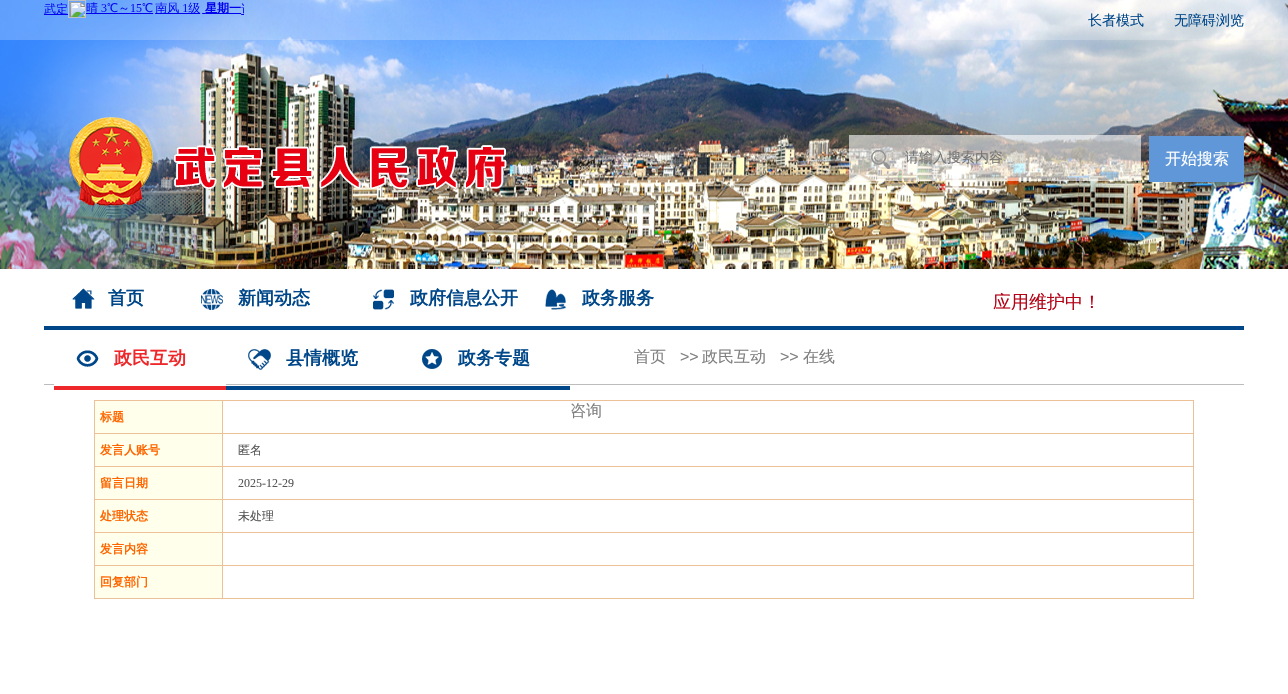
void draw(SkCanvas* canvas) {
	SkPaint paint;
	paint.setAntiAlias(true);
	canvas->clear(0xffffffff);
	canvas->drawImageRect(SkImages::DeferredFromEncodedData(SkData::MakeFromFileName("img1.png")), SkRect::MakeXYWH(0, 0, 1288, 269), SkSamplingOptions());
	paint.setColor(0x38ffffff);
	canvas->drawRect(SkRect::MakeXYWH(0, 0, 1288, 40), paint);
	canvas->drawImageRect(SkImages::DeferredFromEncodedData(SkData::MakeFromFileName("img2.png")), SkRect::MakeXYWH(44, 0, 200, 18), SkSamplingOptions());
	SkFont f1(fontMgr->matchFamilyStyle("WenQuanYi Zen Hei", SkFontStyle(500, SkFontStyle::kNormal_Width, SkFontStyle::kUpright_Slant)), 14);
	f1.setSubpixel(true);
	paint.setColor(0xff004789);
	canvas->drawString("长者模式", 1088, 25, f1, paint);
	canvas->drawString("无障碍浏览", 1174, 25, f1, paint);
	canvas->drawImageRect(SkImages::DeferredFromEncodedData(SkData::MakeFromFileName("img3.png")), SkRect::MakeXYWH(60, 116, 103, 90), SkSamplingOptions());
	canvas->drawImageRect(SkImages::DeferredFromEncodedData(SkData::MakeFromFileName("img4.png")), SkRect::MakeXYWH(173, 145, 334, 45), SkSamplingOptions());
	paint.setColor(0x99ffffff);
	canvas->drawRect(SkRect::MakeXYWH(849, 135, 292, 46), paint);
	canvas->drawImageRect(SkImages::DeferredFromEncodedData(SkData::MakeFromFileName("img5.png")), SkRect::MakeXYWH(871, 150, 19, 19), SkSamplingOptions());
	paint.setColor(0xff757575);
	canvas->drawString("请输入搜索内容", 905, 162, f1, paint);
	paint.setColor(0xff6097d8);
	canvas->drawRect(SkRect::MakeXYWH(1149, 136, 95, 46), paint);
	SkFont f2(fontMgr->matchFamilyStyle("WenQuanYi Zen Hei", SkFontStyle(500, SkFontStyle::kNormal_Width, SkFontStyle::kUpright_Slant)), 16);
	f2.setSubpixel(true);
	paint.setColor(0xffffffff);
	canvas->drawString("开始搜索", 1165, 164, f2, paint);
	SkFont f3(fontMgr->matchFamilyStyle("WenQuanYi Zen Hei", SkFontStyle(500, SkFontStyle::kNormal_Width, SkFontStyle::kUpright_Slant)), 18);
	f3.setSubpixel(true);
	paint.setColor(0xffb30216);
	canvas->drawString("应用维护中！", 993, 308, f3, paint);
	paint.setColor(0xff004789);
	canvas->drawRect(SkRect::MakeXYWH(44, 326, 1200, 4), paint);
	canvas->drawImageRect(SkImages::DeferredFromEncodedData(SkData::MakeFromFileName("img6.png")), SkRect::MakeXYWH(72, 288, 23, 21), SkSamplingOptions());
	SkFont f4(fontMgr->matchFamilyStyle("WenQuanYi Zen Hei", SkFontStyle::Bold()), 18);
	f4.setSubpixel(true);
	canvas->drawString("首页", 108, 304, f4, paint);
	canvas->drawImageRect(SkImages::DeferredFromEncodedData(SkData::MakeFromFileName("img7.png")), SkRect::MakeXYWH(201, 289, 22, 21), SkSamplingOptions());
	canvas->drawString("新闻动态", 238, 304, f4, paint);
	canvas->drawImageRect(SkImages::DeferredFromEncodedData(SkData::MakeFromFileName("img8.png")), SkRect::MakeXYWH(373, 289, 21, 21), SkSamplingOptions());
	canvas->drawString("政府信息公开", 410, 304, f4, paint);
	canvas->drawImageRect(SkImages::DeferredFromEncodedData(SkData::MakeFromFileName("img9.png")), SkRect::MakeXYWH(545, 289, 21, 21), SkSamplingOptions());
	canvas->drawString("政务服务", 582, 304, f4, paint);
	paint.setColor(0xffbcbcbc);
	canvas->drawRect(SkRect::MakeXYWH(44, 384, 1200, 1), paint);
	paint.setColor(0xffffffff);
	canvas->drawRect(SkRect::MakeXYWH(54, 384, 172, 1), paint);
	canvas->drawImageRect(SkImages::DeferredFromEncodedData(SkData::MakeFromFileName("img10.png")), SkRect::MakeXYWH(76, 350, 23, 17), SkSamplingOptions());
	paint.setColor(0xffee272a);
	canvas->drawRect(SkRect::MakeXYWH(54, 386, 172, 4), paint);
	canvas->drawString("政民互动", 114, 364, f4, paint);
	canvas->drawImageRect(SkImages::DeferredFromEncodedData(SkData::MakeFromFileName("img11.png")), SkRect::MakeXYWH(248, 349, 23, 21), SkSamplingOptions());
	paint.setColor(0xff004789);
	canvas->drawRect(SkRect::MakeXYWH(226, 386, 344, 4), paint);
	canvas->drawString("县情概览", 286, 364, f4, paint);
	canvas->drawImageRect(SkImages::DeferredFromEncodedData(SkData::MakeFromFileName("img12.png")), SkRect::MakeXYWH(422, 349, 20, 20), SkSamplingOptions());
	canvas->drawString("政务专题", 458, 364, f4, paint);
	paint.setColor(0xff808080);
	canvas->drawString("首页", 634, 362, f2, paint);
	SkFont f5(fontMgr->matchFamilyStyle("Liberation Sans", SkFontStyle::Normal()), 16);
	f5.setSubpixel(true);
	canvas->drawString(">>", 680, 362, f5, paint);
	canvas->drawString("政民互动", 702, 362, f2, paint);
	canvas->drawString(">>", 780, 362, f5, paint);
	canvas->drawString("在线", 803, 362, f2, paint);
	canvas->drawString("咨询", 570, 416, f2, paint);
	paint.setColor(0xffecc197);
	canvas->drawRect(SkRect::MakeXYWH(94, 400, 1100, 1), paint);
	canvas->drawRect(SkRect::MakeXYWH(1193, 400, 1, 199), paint);
	canvas->drawRect(SkRect::MakeXYWH(94, 598, 1100, 1), paint);
	canvas->drawRect(SkRect::MakeXYWH(94, 400, 1, 199), paint);
	paint.setColor(0xffffffec);
	canvas->drawRect(SkRect::MakeXYWH(95, 401, 127, 32), paint);
	SkFont f6(fontMgr->matchFamilyStyle("WenQuanYi Zen Hei", SkFontStyle::Bold()), 12);
	f6.setSubpixel(true);
	paint.setColor(0xffff6600);
	canvas->drawString("标题", 100, 421, f6, paint);
	paint.setColor(0xffecc197);
	canvas->drawRect(SkRect::MakeXYWH(222, 433, 972, 1), paint);
	canvas->drawRect(SkRect::MakeXYWH(222, 466, 972, 1), paint);
	canvas->drawRect(SkRect::MakeXYWH(222, 499, 972, 1), paint);
	canvas->drawRect(SkRect::MakeXYWH(222, 532, 972, 1), paint);
	canvas->drawRect(SkRect::MakeXYWH(222, 565, 972, 1), paint);
	canvas->drawRect(SkRect::MakeXYWH(222, 565, 1, 34), paint);
	canvas->drawRect(SkRect::MakeXYWH(94, 565, 129, 1), paint);
	canvas->drawRect(SkRect::MakeXYWH(222, 532, 1, 34), paint);
	canvas->drawRect(SkRect::MakeXYWH(94, 532, 129, 1), paint);
	canvas->drawRect(SkRect::MakeXYWH(222, 499, 1, 34), paint);
	canvas->drawRect(SkRect::MakeXYWH(94, 499, 129, 1), paint);
	canvas->drawRect(SkRect::MakeXYWH(222, 466, 1, 34), paint);
	canvas->drawRect(SkRect::MakeXYWH(94, 466, 129, 1), paint);
	canvas->drawRect(SkRect::MakeXYWH(222, 433, 1, 34), paint);
	canvas->drawRect(SkRect::MakeXYWH(94, 433, 129, 1), paint);
	canvas->drawRect(SkRect::MakeXYWH(222, 400, 1, 34), paint);
	paint.setColor(0xffffffec);
	canvas->drawRect(SkRect::MakeXYWH(95, 434, 127, 32), paint);
	paint.setColor(0xffff6600);
	canvas->drawString("发言人账号", 100, 454, f6, paint);
	SkFont f7(fontMgr->matchFamilyStyle("WenQuanYi Zen Hei", SkFontStyle(500, SkFontStyle::kNormal_Width, SkFontStyle::kUpright_Slant)), 12);
	f7.setSubpixel(true);
	paint.setColor(0xff555555);
	canvas->drawString("匿名", 238, 454, f7, paint);
	paint.setColor(0xffffffec);
	canvas->drawRect(SkRect::MakeXYWH(95, 467, 127, 32), paint);
	paint.setColor(0xffff6600);
	canvas->drawString("留言日期", 100, 487, f6, paint);
	SkFont f8(fontMgr->matchFamilyStyle("Liberation Serif", SkFontStyle::Normal()), 12);
	f8.setSubpixel(true);
	paint.setColor(0xff555555);
	canvas->drawString("2025-12-29", 238, 487, f8, paint);
	paint.setColor(0xffffffec);
	canvas->drawRect(SkRect::MakeXYWH(95, 500, 127, 32), paint);
	paint.setColor(0xffff6600);
	canvas->drawString("处理状态", 100, 520, f6, paint);
	paint.setColor(0xff555555);
	canvas->drawString("未处理", 238, 520, f7, paint);
	paint.setColor(0xffffffec);
	canvas->drawRect(SkRect::MakeXYWH(95, 533, 127, 32), paint);
	paint.setColor(0xffff6600);
	canvas->drawString("发言内容", 100, 553, f6, paint);
	paint.setColor(0xffffffec);
	canvas->drawRect(SkRect::MakeXYWH(95, 566, 127, 32), paint);
	paint.setColor(0xffff6600);
	canvas->drawString("回复部门", 100, 586, f6, paint);
}
